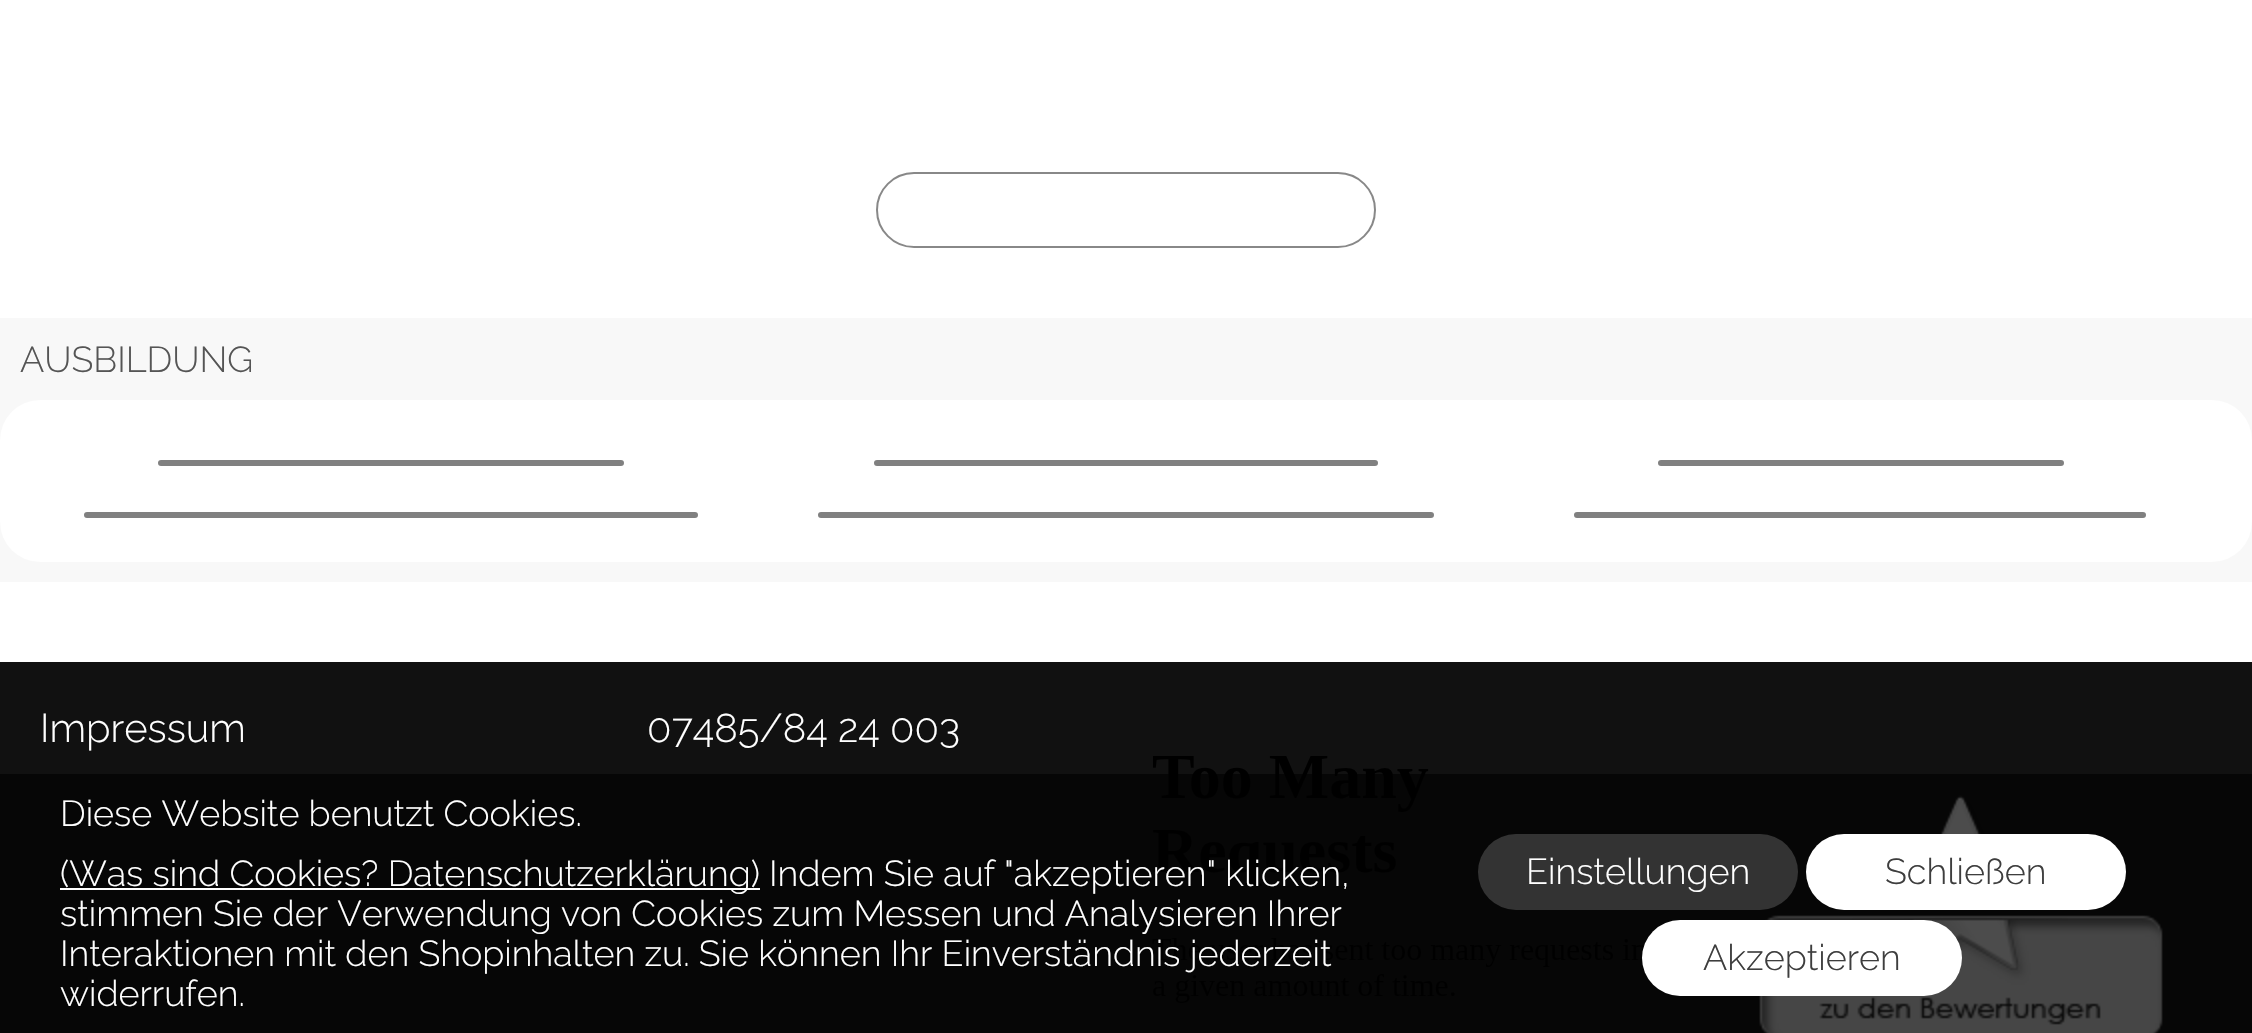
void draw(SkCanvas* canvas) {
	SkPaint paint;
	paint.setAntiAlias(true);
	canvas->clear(0xffffffff);
	paint.setStroke(true);
	paint.setStrokeWidth(2);
	paint.setColor(0xff888888);
	canvas->drawRoundRect(SkRect::MakeXYWH(877, 173, 498, 74), 37, 37, paint);
	paint.setStroke(false);
	paint.setColor(0xfff8f8f8);
	canvas->drawRect(SkRect::MakeXYWH(0, 318, 2252, 264), paint);
	SkFont f1(fontMgr->matchFamilyStyle("Raleway", SkFontStyle(300, SkFontStyle::kNormal_Width, SkFontStyle::kUpright_Slant)), 36);
	f1.setSubpixel(true);
	paint.setColor(0xff555555);
	canvas->drawString("AUSBILDUNG", 20, 372, f1, paint);
	paint.setColor(0xffffffff);
	canvas->drawRoundRect(SkRect::MakeXYWH(0, 400, 2252, 162), 40, 40, paint);
	paint.setColor(0xff808080);
	canvas->drawRoundRect(SkRect::MakeXYWH(156, 458, 470, 10), 5, 5, paint);
	paint.setStroke(true);
	paint.setStrokeWidth(4);
	paint.setColor(0xffffffff);
	canvas->drawRoundRect(SkRect::MakeXYWH(156, 458, 470, 10), 5, 5, paint);
	paint.setStroke(false);
	paint.setColor(0xff808080);
	canvas->drawRoundRect(SkRect::MakeXYWH(872, 458, 508, 10), 5, 5, paint);
	paint.setStroke(true);
	paint.setColor(0xffffffff);
	canvas->drawRoundRect(SkRect::MakeXYWH(872, 458, 508, 10), 5, 5, paint);
	paint.setStroke(false);
	paint.setColor(0xff808080);
	canvas->drawRoundRect(SkRect::MakeXYWH(1656, 458, 410, 10), 5, 5, paint);
	paint.setStroke(true);
	paint.setColor(0xffffffff);
	canvas->drawRoundRect(SkRect::MakeXYWH(1656, 458, 410, 10), 5, 5, paint);
	paint.setStroke(false);
	paint.setColor(0xff808080);
	canvas->drawRoundRect(SkRect::MakeXYWH(82, 510, 618, 10), 5, 5, paint);
	paint.setStroke(true);
	paint.setColor(0xffffffff);
	canvas->drawRoundRect(SkRect::MakeXYWH(82, 510, 618, 10), 5, 5, paint);
	paint.setStroke(false);
	paint.setColor(0xff808080);
	canvas->drawRoundRect(SkRect::MakeXYWH(816, 510, 620, 10), 5, 5, paint);
	paint.setStroke(true);
	paint.setColor(0xffffffff);
	canvas->drawRoundRect(SkRect::MakeXYWH(816, 510, 620, 10), 5, 5, paint);
	paint.setStroke(false);
	paint.setColor(0xff808080);
	canvas->drawRoundRect(SkRect::MakeXYWH(1572, 510, 576, 10), 5, 5, paint);
	paint.setStroke(true);
	paint.setColor(0xffffffff);
	canvas->drawRoundRect(SkRect::MakeXYWH(1572, 510, 576, 10), 5, 5, paint);
	paint.setStroke(false);
	paint.setColor(0xff111111);
	canvas->drawRect(SkRect::MakeXYWH(0, 662, 2252, 371), paint);
	SkFont f2(fontMgr->matchFamilyStyle("Raleway", SkFontStyle(300, SkFontStyle::kNormal_Width, SkFontStyle::kUpright_Slant)), 40);
	f2.setSubpixel(true);
	paint.setColor(0xffffffff);
	canvas->drawString("Impressum", 40, 742, f2, paint);
	canvas->drawString("07485/84 24 003", 647, 742, f2, paint);
	canvas->drawImageRect(SkImages::DeferredFromEncodedData(SkData::MakeFromFileName("img1.png")), SkRect::MakeXYWH(1152, 756, 492, 247), SkSamplingOptions());
	canvas->drawImageRect(SkImages::DeferredFromEncodedData(SkData::MakeFromFileName("img2.png")), SkRect::MakeXYWH(1759, 795, 404, 238), SkSamplingOptions());
	paint.setColor(0xb3000000);
	canvas->drawRect(SkRect::MakeXYWH(0, 774, 2252, 259), paint);
	paint.setColor(0xffffffff);
	canvas->drawString("Diese Website benutzt Cookies.", 60, 826, f1, paint);
	canvas->drawRect(SkRect::MakeXYWH(60, 888, 700, 2), paint);
	canvas->drawString("(Was sind Cookies? Datenschutzerklärung) Indem Sie auf \"akzeptieren\" klicken,", 60, 886, f1, paint);
	canvas->drawString("stimmen Sie der Verwendung von Cookies zum Messen und Analysieren Ihrer", 60, 926, f1, paint);
	canvas->drawString("Interaktionen mit den Shopinhalten zu. Sie können Ihr Einverständnis jederzeit", 60, 966, f1, paint);
	canvas->drawString("widerrufen.", 60, 1006, f1, paint);
	paint.setColor(0xff333333);
	canvas->drawRoundRect(SkRect::MakeXYWH(1478, 834, 320, 76), 38, 38, paint);
	paint.setColor(0xffffffff);
	canvas->drawString("Einstellungen", 1526, 884, f1, paint);
	canvas->drawRoundRect(SkRect::MakeXYWH(1806, 834, 320, 76), 38, 38, paint);
	paint.setColor(0xff3e3e3e);
	canvas->drawString("Schließen", 1885, 884, f1, paint);
	paint.setColor(0xffffffff);
	canvas->drawRoundRect(SkRect::MakeXYWH(1642, 920, 320, 76), 38, 38, paint);
	paint.setColor(0xff3e3e3e);
	canvas->drawString("Akzeptieren", 1703, 970, f1, paint);
}
